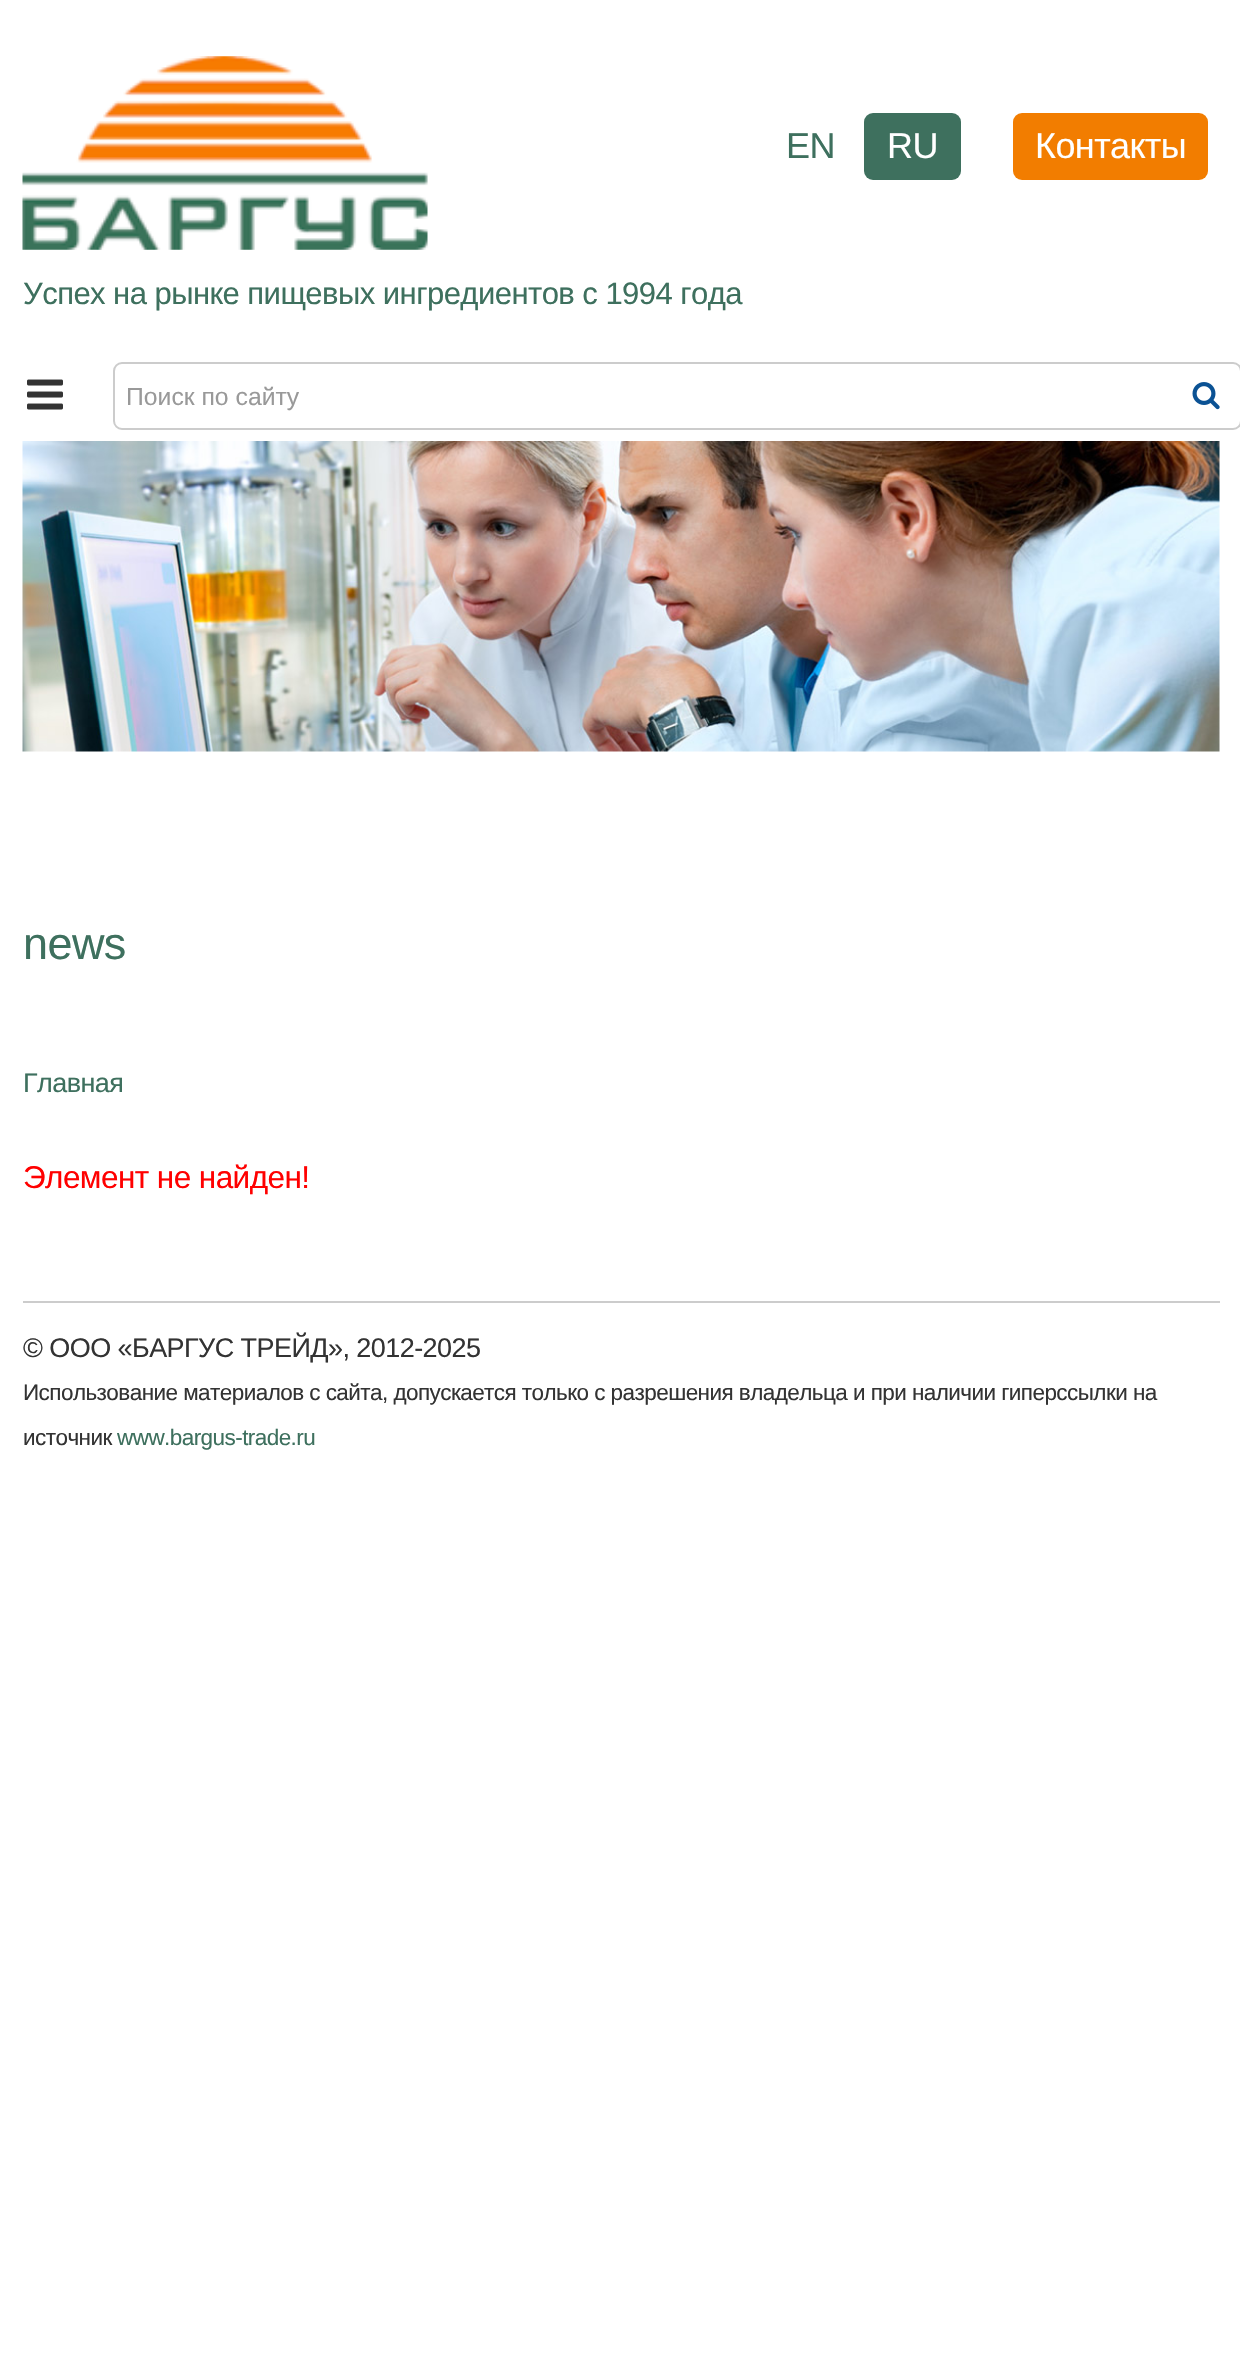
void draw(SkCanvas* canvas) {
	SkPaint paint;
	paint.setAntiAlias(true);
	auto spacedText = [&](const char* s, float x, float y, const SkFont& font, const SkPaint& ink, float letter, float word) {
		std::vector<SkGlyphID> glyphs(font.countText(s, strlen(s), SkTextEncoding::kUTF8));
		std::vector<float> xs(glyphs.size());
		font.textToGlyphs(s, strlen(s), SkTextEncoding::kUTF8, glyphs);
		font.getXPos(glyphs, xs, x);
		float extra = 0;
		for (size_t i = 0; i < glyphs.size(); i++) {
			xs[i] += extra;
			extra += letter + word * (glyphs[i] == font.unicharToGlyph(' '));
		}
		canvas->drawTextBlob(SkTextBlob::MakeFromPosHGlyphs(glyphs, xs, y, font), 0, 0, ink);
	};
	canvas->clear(0xffffffff);
	SkFont f1(fontMgr->matchFamilyStyle("Liberation Sans", SkFontStyle::Normal()), 36);
	f1.setSubpixel(true);
	paint.setColor(0xff3e705e);
	spacedText("EN", 786, 158, f1, paint, -0.56, 0);
	canvas->drawRoundRect(SkRect::MakeXYWH(864, 113, 97, 67), 9, 9, paint);
	paint.setColor(0xffffffff);
	spacedText("RU", 887, 158, f1, paint, -0.56, 0);
	paint.setColor(0xfff27d00);
	canvas->drawRoundRect(SkRect::MakeXYWH(1013, 113, 195, 67), 9, 9, paint);
	paint.setColor(0xffffffff);
	spacedText("Контакты", 1035, 158, f1, paint, -0.56, 0);
	canvas->drawImageRect(SkImages::DeferredFromEncodedData(SkData::MakeFromFileName("img1.png")), SkRect::MakeXYWH(22, 56, 406, 194), SkSamplingOptions());
	SkFont f2(fontMgr->matchFamilyStyle("Liberation Sans", SkFontStyle::Normal()), 31.05);
	f2.setSubpixel(true);
	paint.setColor(0xff3e705e);
	spacedText("Успех на рынке пищевых ингредиентов с 1994 года", 23, 304, f2, paint, -0.56, 0);
	canvas->drawImageRect(SkImages::DeferredFromEncodedData(SkData::MakeFromFileName("img2.png")), SkRect::MakeXYWH(27, 379, 36, 31), SkSamplingOptions());
	paint.setStroke(true);
	paint.setStrokeWidth(2);
	paint.setColor(0xffcccccc);
	canvas->drawRoundRect(SkRect::MakeXYWH(114, 363, 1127, 66), 8, 8, paint);
	SkFont f3(fontMgr->matchFamilyStyle("Liberation Sans", SkFontStyle::Normal()), 24.75);
	f3.setSubpixel(true);
	paint.setStroke(false);
	paint.setColor(0xff999999);
	canvas->drawString("Поиск по сайту", 126, 405, f3, paint);
	canvas->drawImageRect(SkImages::DeferredFromEncodedData(SkData::MakeFromFileName("img3.png")), SkRect::MakeXYWH(1192, 382, 28, 28), SkSamplingOptions());
	canvas->drawImageRect(SkImages::DeferredFromEncodedData(SkData::MakeFromFileName("img4.png")), SkRect::MakeXYWH(22, 441, 1198, 311), SkSamplingOptions());
	SkFont f4(fontMgr->matchFamilyStyle("Liberation Sans", SkFontStyle::Normal()), 45);
	f4.setSubpixel(true);
	paint.setColor(0xff3e705e);
	spacedText("news", 23, 959, f4, paint, -0.56, 0);
	SkFont f5(fontMgr->matchFamilyStyle("Liberation Sans", SkFontStyle::Normal()), 27);
	f5.setSubpixel(true);
	spacedText("Главная", 23, 1092, f5, paint, -0.56, 0);
	SkFont f6(fontMgr->matchFamilyStyle("Liberation Sans", SkFontStyle::Normal()), 31.5);
	f6.setSubpixel(true);
	paint.setColor(0xffff0000);
	spacedText("Элемент не найден!", 23, 1188, f6, paint, -0.56, 0);
	paint.setColor(0xffcccccc);
	canvas->drawRect(SkRect::MakeXYWH(23, 1301, 1197, 2), paint);
	paint.setColor(0xff333333);
	spacedText("© ООО «БАРГУС ТРЕЙД», 2012-2025", 23, 1357, f5, paint, -0.56, 0);
	SkFont f7(fontMgr->matchFamilyStyle("Liberation Sans", SkFontStyle::Normal()), 22.5);
	f7.setSubpixel(true);
	spacedText("Использование материалов с cайта, допускается только с разрешения владельца и при наличии гиперссылки на", 23, 1400, f7, paint, -0.56, 0);
	spacedText("источник", 23, 1445, f7, paint, -0.56, 0);
	paint.setColor(0xff3e705e);
	spacedText("www.bargus-trade.ru", 117, 1445, f7, paint, -0.56, 0);
}
